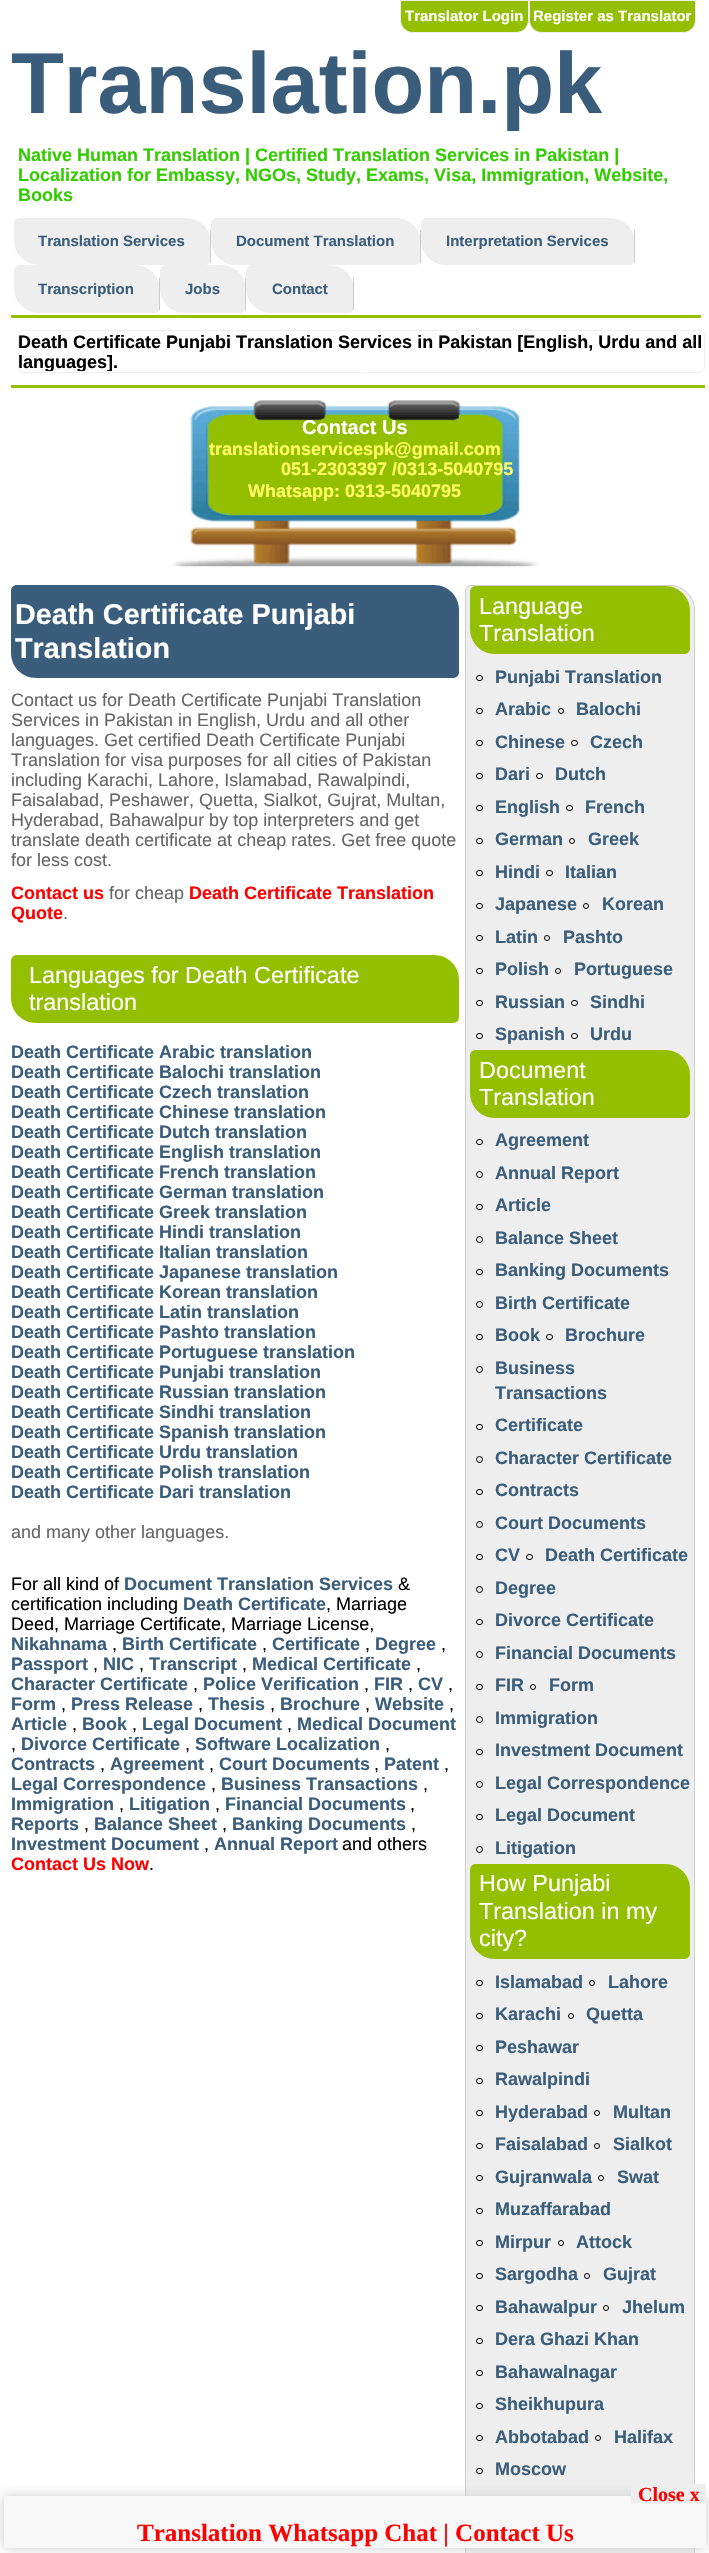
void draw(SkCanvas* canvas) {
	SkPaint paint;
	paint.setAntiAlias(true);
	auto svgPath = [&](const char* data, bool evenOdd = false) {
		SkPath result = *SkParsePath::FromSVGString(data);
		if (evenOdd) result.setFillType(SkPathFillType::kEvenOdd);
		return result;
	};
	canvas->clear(0xffffffff);
	paint.setColor(0xff94be00);
	canvas->drawPath(svgPath("M400.5 .5H528.5V20C528.5 27 523 32.5 516 32.5H413C406 32.5 400.5 27 400.5 20Z"), paint);
	paint.setStroke(true);
	paint.setStrokeWidth(1);
	paint.setColor(0xffeeeeee);
	canvas->drawPath(svgPath("M400.5 .5H528.5V20C528.5 27 523 32.5 516 32.5H413C406 32.5 400.5 27 400.5 20Z"), paint);
	SkFont f1(fontMgr->matchFamilyStyle("Liberation Sans", SkFontStyle::Bold()), 15);
	f1.setSubpixel(true);
	paint.setStroke(false);
	paint.setColor(0xffffffff);
	canvas->drawString("Translator Login", 405, 21, f1, paint);
	paint.setColor(0xff94be00);
	canvas->drawPath(svgPath("M529.5 .5H695.5V20C695.5 27 690 32.5 683 32.5H542C535 32.5 529.5 27 529.5 20Z"), paint);
	paint.setStroke(true);
	paint.setColor(0xffeeeeee);
	canvas->drawPath(svgPath("M529.5 .5H695.5V20C695.5 27 690 32.5 683 32.5H542C535 32.5 529.5 27 529.5 20Z"), paint);
	paint.setStroke(false);
	paint.setColor(0xffffffff);
	canvas->drawString("Register as Translator", 533, 21, f1, paint);
	SkFont f2(fontMgr->matchFamilyStyle("Liberation Sans", SkFontStyle::Bold()), 86.5);
	f2.setSubpixel(true);
	paint.setColor(0xff395d7b);
	canvas->drawString("Translation.pk", 11, 113, f2, paint);
	SkFont f3(fontMgr->matchFamilyStyle("Liberation Sans", SkFontStyle::Bold()), 18);
	f3.setSubpixel(true);
	paint.setColor(0xff33cc00);
	canvas->drawString("Native Human Translation | Certified Translation Services in Pakistan |", 18, 161, f3, paint);
	canvas->drawString("Localization for Embassy, NGOs, Study, Exams, Visa, Immigration, Website,", 18, 181, f3, paint);
	canvas->drawString("Books", 18, 201, f3, paint);
	paint.setColor(0xff94be00);
	canvas->drawRect(SkRect::MakeXYWH(11, 315, 690, 3), paint);
	paint.setColor(0xffeeeeee);
	canvas->drawPath(svgPath("M20 218H186C200 218 211 229 211 243V259C211 262.5 208.5 265 205 265H39C25 265 14 254 14 240V224C14 220.5 16.5 218 20 218Z"), paint);
	paint.setColor(0xffcccccc);
	canvas->drawRect(SkRect::MakeXYWH(210, 230, 1, 33), paint);
	paint.setColor(0xff395d7b);
	canvas->drawString("Translation Services", 38, 246, f1, paint);
	paint.setColor(0xffeeeeee);
	canvas->drawPath(svgPath("M217 218H396C410 218 421 229 421 243V259C421 262.5 418.5 265 415 265H236C222 265 211 254 211 240V224C211 220.5 213.5 218 217 218Z"), paint);
	paint.setColor(0xffcccccc);
	canvas->drawRect(SkRect::MakeXYWH(420, 230, 1, 33), paint);
	paint.setColor(0xff395d7b);
	canvas->drawString("Document Translation", 236, 246, f1, paint);
	paint.setColor(0xffeeeeee);
	canvas->drawPath(svgPath("M427 218H610C624 218 635 229 635 243V259C635 262.5 632.5 265 629 265H446C432 265 421 254 421 240V224C421 220.5 423.5 218 427 218Z"), paint);
	paint.setColor(0xffcccccc);
	canvas->drawRect(SkRect::MakeXYWH(634, 230, 1, 33), paint);
	paint.setColor(0xff395d7b);
	canvas->drawString("Interpretation Services", 446, 246, f1, paint);
	paint.setColor(0xffeeeeee);
	canvas->drawPath(svgPath("M20 265H135C149 265 160 276 160 290V307C160 310.5 157.5 313 154 313H39C25 313 14 302 14 288V271C14 267.5 16.5 265 20 265Z"), paint);
	paint.setColor(0xffcccccc);
	canvas->drawRect(SkRect::MakeXYWH(159, 278, 1, 32), paint);
	paint.setColor(0xff395d7b);
	canvas->drawString("Transcription", 38, 294, f1, paint);
	paint.setColor(0xffeeeeee);
	canvas->drawPath(svgPath("M166 265H221C235 265 246 276 246 290V307C246 310.5 243.5 313 240 313H185C171 313 160 302 160 288V271C160 267.5 162.5 265 166 265Z"), paint);
	paint.setColor(0xffcccccc);
	canvas->drawRect(SkRect::MakeXYWH(245, 278, 1, 32), paint);
	paint.setColor(0xff395d7b);
	canvas->drawString("Jobs", 185, 294, f1, paint);
	paint.setColor(0xffeeeeee);
	canvas->drawPath(svgPath("M252 265H329C343 265 354 276 354 290V307C354 310.5 351.5 313 348 313H271C257 313 246 302 246 288V271C246 267.5 248.5 265 252 265Z"), paint);
	paint.setColor(0xffcccccc);
	canvas->drawRect(SkRect::MakeXYWH(353, 278, 1, 32), paint);
	paint.setColor(0xff395d7b);
	canvas->drawString("Contact", 272, 294, f1, paint);
	paint.setColor(0xff94be00);
	canvas->drawRect(SkRect::MakeXYWH(11, 385, 694, 3), paint);
	paint.setStroke(true);
	paint.setColor(0xffeeeeee);
	canvas->drawRoundRect(SkRect::MakeXYWH(18.5, 330.5, 686, 42), 5.5, 5.5, paint);
	paint.setStroke(false);
	paint.setColor(0xff000000);
	canvas->drawString("Death Certificate Punjabi Translation Services in Pakistan [English, Urdu and all", 18, 348, f3, paint);
	canvas->save();
	canvas->clipPath(svgPath("M24 331H699C702 331 704 333 704 336V366C704 369 702 371 699 371H24C21 371 19 369 19 366V336C19 333 21 331 24 331Z"), true);
	canvas->drawString("languages].", 18, 368, f3, paint);
	canvas->restore();
	canvas->drawImageRect(SkImages::DeferredFromEncodedData(SkData::MakeFromFileName("img1.png")), SkRect::MakeXYWH(171, 400, 368, 167), SkSamplingOptions());
	SkFont f4(fontMgr->matchFamilyStyle("Liberation Sans", SkFontStyle::Bold()), 20);
	f4.setSubpixel(true);
	paint.setColor(0xffffffff);
	canvas->drawString("Contact Us", 302, 434, f4, paint);
	paint.setColor(0xffffff66);
	canvas->drawString("translationservicespk@gmail.com", 209, 455, f3, paint);
	canvas->drawString("051-2303397 /0313-5040795", 281, 475, f3, paint);
	canvas->drawString("Whatsapp: 0313-5040795", 248, 497, f3, paint);
	paint.setColor(0xff395d7b);
	canvas->drawPath(svgPath("M17 585H434C448 585 459 596 459 610V672C459 675.5 456.5 678 453 678H36C22 678 11 667 11 653V591C11 587.5 13.5 585 17 585Z"), paint);
	SkFont f5(fontMgr->matchFamilyStyle("Liberation Sans", SkFontStyle::Bold()), 28.75);
	f5.setSubpixel(true);
	paint.setColor(0xffffffff);
	canvas->drawString("Death Certificate Punjabi", 15, 624, f5, paint);
	canvas->drawString("Translation", 15, 658, f5, paint);
	SkFont f6(fontMgr->matchFamilyStyle("Liberation Sans", SkFontStyle::Normal()), 18);
	f6.setSubpixel(true);
	paint.setColor(0xff666666);
	canvas->drawString("Contact us for Death Certificate Punjabi Translation", 11, 706, f6, paint);
	canvas->drawString("Services in Pakistan in English, Urdu and all other", 11, 726, f6, paint);
	canvas->drawString("languages. Get certified Death Certificate Punjabi", 11, 746, f6, paint);
	canvas->drawString("Translation for visa purposes for all cities of Pakistan", 11, 766, f6, paint);
	canvas->drawString("including Karachi, Lahore, Islamabad, Rawalpindi,", 11, 786, f6, paint);
	canvas->drawString("Faisalabad, Peshawer, Quetta, Sialkot, Gujrat, Multan,", 11, 806, f6, paint);
	canvas->drawString("Hyderabad, Bahawalpur by top interpreters and get", 11, 826, f6, paint);
	canvas->drawString("translate death certificate at cheap rates. Get free quote", 11, 846, f6, paint);
	canvas->drawString("for less cost.", 11, 866, f6, paint);
	paint.setColor(0xffff0000);
	canvas->drawString("Contact us", 11, 899, f3, paint);
	paint.setColor(0xff666666);
	canvas->drawString("for cheap", 109, 899, f6, paint);
	paint.setColor(0xffff0000);
	canvas->drawString("Death Certificate Translation", 189, 899, f3, paint);
	canvas->drawString("Quote", 11, 919, f3, paint);
	paint.setColor(0xff666666);
	canvas->drawString(".", 63, 919, f6, paint);
	paint.setColor(0xff94be00);
	canvas->drawPath(svgPath("M17 955H434C448 955 459 966 459 980V1017C459 1020.5 456.5 1023 453 1023H36C22 1023 11 1012 11 998V961C11 957.5 13.5 955 17 955Z"), paint);
	SkFont f7(fontMgr->matchFamilyStyle("Liberation Sans", SkFontStyle::Normal()), 23.4);
	f7.setSubpixel(true);
	paint.setColor(0xffffffff);
	canvas->drawString("Languages for Death Certificate", 29, 983, f7, paint);
	canvas->drawString("translation", 29, 1010, f7, paint);
	paint.setColor(0xff395d7b);
	canvas->drawString("Death Certificate Arabic translation", 11, 1058, f3, paint);
	canvas->drawString("Death Certificate Balochi translation", 11, 1078, f3, paint);
	canvas->drawString("Death Certificate Czech translation", 11, 1098, f3, paint);
	canvas->drawString("Death Certificate Chinese translation", 11, 1118, f3, paint);
	canvas->drawString("Death Certificate Dutch translation", 11, 1138, f3, paint);
	canvas->drawString("Death Certificate English translation", 11, 1158, f3, paint);
	canvas->drawString("Death Certificate French translation", 11, 1178, f3, paint);
	canvas->drawString("Death Certificate German translation", 11, 1198, f3, paint);
	canvas->drawString("Death Certificate Greek translation", 11, 1218, f3, paint);
	canvas->drawString("Death Certificate Hindi translation", 11, 1238, f3, paint);
	canvas->drawString("Death Certificate Italian translation", 11, 1258, f3, paint);
	canvas->drawString("Death Certificate Japanese translation", 11, 1278, f3, paint);
	canvas->drawString("Death Certificate Korean translation", 11, 1298, f3, paint);
	canvas->drawString("Death Certificate Latin translation", 11, 1318, f3, paint);
	canvas->drawString("Death Certificate Pashto translation", 11, 1338, f3, paint);
	canvas->drawString("Death Certificate Portuguese translation", 11, 1358, f3, paint);
	canvas->drawString("Death Certificate Punjabi translation", 11, 1378, f3, paint);
	canvas->drawString("Death Certificate Russian translation", 11, 1398, f3, paint);
	canvas->drawString("Death Certificate Sindhi translation", 11, 1418, f3, paint);
	canvas->drawString("Death Certificate Spanish translation", 11, 1438, f3, paint);
	canvas->drawString("Death Certificate Urdu translation", 11, 1458, f3, paint);
	canvas->drawString("Death Certificate Polish translation", 11, 1478, f3, paint);
	canvas->drawString("Death Certificate Dari translation", 11, 1498, f3, paint);
	paint.setColor(0xff666666);
	canvas->drawString("and many other languages.", 11, 1538, f6, paint);
	paint.setColor(0xff000000);
	canvas->drawString("For all kind of", 11, 1590, f6, paint);
	paint.setColor(0xff395d7b);
	canvas->drawString("Document Translation Services", 124, 1590, f3, paint);
	paint.setColor(0xff000000);
	canvas->drawString("&", 398, 1590, f6, paint);
	canvas->drawString("certification including", 11, 1610, f6, paint);
	paint.setColor(0xff395d7b);
	canvas->drawString("Death Certificate", 183, 1610, f3, paint);
	paint.setColor(0xff000000);
	canvas->drawString(", Marriage", 326, 1610, f6, paint);
	canvas->drawString("Deed, Marriage Certificate, Marriage License,", 11, 1630, f6, paint);
	paint.setColor(0xff395d7b);
	canvas->drawString("Nikahnama", 11, 1650, f3, paint);
	paint.setColor(0xff000000);
	canvas->drawString(",", 112, 1650, f6, paint);
	paint.setColor(0xff395d7b);
	canvas->drawString("Birth Certificate", 122, 1650, f3, paint);
	paint.setColor(0xff000000);
	canvas->drawString(",", 262, 1650, f6, paint);
	paint.setColor(0xff395d7b);
	canvas->drawString("Certificate", 272, 1650, f3, paint);
	paint.setColor(0xff000000);
	canvas->drawString(",", 365, 1650, f6, paint);
	paint.setColor(0xff395d7b);
	canvas->drawString("Degree", 375, 1650, f3, paint);
	paint.setColor(0xff000000);
	canvas->drawString(",", 441, 1650, f6, paint);
	paint.setColor(0xff395d7b);
	canvas->drawString("Passport", 11, 1670, f3, paint);
	paint.setColor(0xff000000);
	canvas->drawString(",", 93, 1670, f6, paint);
	paint.setColor(0xff395d7b);
	canvas->drawString("NIC", 103, 1670, f3, paint);
	paint.setColor(0xff000000);
	canvas->drawString(",", 139, 1670, f6, paint);
	paint.setColor(0xff395d7b);
	canvas->drawString("Transcript", 149, 1670, f3, paint);
	paint.setColor(0xff000000);
	canvas->drawString(",", 242, 1670, f6, paint);
	paint.setColor(0xff395d7b);
	canvas->drawString("Medical Certificate", 252, 1670, f3, paint);
	paint.setColor(0xff000000);
	canvas->drawString(",", 416, 1670, f6, paint);
	paint.setColor(0xff395d7b);
	canvas->drawString("Character Certificate", 11, 1690, f3, paint);
	paint.setColor(0xff000000);
	canvas->drawString(",", 193, 1690, f6, paint);
	paint.setColor(0xff395d7b);
	canvas->drawString("Police Verification", 203, 1690, f3, paint);
	paint.setColor(0xff000000);
	canvas->drawString(",", 364, 1690, f6, paint);
	paint.setColor(0xff395d7b);
	canvas->drawString("FIR", 374, 1690, f3, paint);
	paint.setColor(0xff000000);
	canvas->drawString(",", 408, 1690, f6, paint);
	paint.setColor(0xff395d7b);
	canvas->drawString("CV", 418, 1690, f3, paint);
	paint.setColor(0xff000000);
	canvas->drawString(",", 448, 1690, f6, paint);
	paint.setColor(0xff395d7b);
	canvas->drawString("Form", 11, 1710, f3, paint);
	paint.setColor(0xff000000);
	canvas->drawString(",", 61, 1710, f6, paint);
	paint.setColor(0xff395d7b);
	canvas->drawString("Press Release", 71, 1710, f3, paint);
	paint.setColor(0xff000000);
	canvas->drawString(",", 198, 1710, f6, paint);
	paint.setColor(0xff395d7b);
	canvas->drawString("Thesis", 208, 1710, f3, paint);
	paint.setColor(0xff000000);
	canvas->drawString(",", 270, 1710, f6, paint);
	paint.setColor(0xff395d7b);
	canvas->drawString("Brochure", 280, 1710, f3, paint);
	paint.setColor(0xff000000);
	canvas->drawString(",", 365, 1710, f6, paint);
	paint.setColor(0xff395d7b);
	canvas->drawString("Website", 375, 1710, f3, paint);
	paint.setColor(0xff000000);
	canvas->drawString(",", 449, 1710, f6, paint);
	paint.setColor(0xff395d7b);
	canvas->drawString("Article", 11, 1730, f3, paint);
	paint.setColor(0xff000000);
	canvas->drawString(",", 72, 1730, f6, paint);
	paint.setColor(0xff395d7b);
	canvas->drawString("Book", 82, 1730, f3, paint);
	paint.setColor(0xff000000);
	canvas->drawString(",", 132, 1730, f6, paint);
	paint.setColor(0xff395d7b);
	canvas->drawString("Legal Document", 142, 1730, f3, paint);
	paint.setColor(0xff000000);
	canvas->drawString(",", 287, 1730, f6, paint);
	paint.setColor(0xff395d7b);
	canvas->drawString("Medical Document", 297, 1730, f3, paint);
	paint.setColor(0xff000000);
	canvas->drawString(",", 11, 1750, f6, paint);
	paint.setColor(0xff395d7b);
	canvas->drawString("Divorce Certificate", 21, 1750, f3, paint);
	paint.setColor(0xff000000);
	canvas->drawString(",", 185, 1750, f6, paint);
	paint.setColor(0xff395d7b);
	canvas->drawString("Software Localization", 195, 1750, f3, paint);
	paint.setColor(0xff000000);
	canvas->drawString(",", 385, 1750, f6, paint);
	paint.setColor(0xff395d7b);
	canvas->drawString("Contracts", 11, 1770, f3, paint);
	paint.setColor(0xff000000);
	canvas->drawString(",", 100, 1770, f6, paint);
	paint.setColor(0xff395d7b);
	canvas->drawString("Agreement", 110, 1770, f3, paint);
	paint.setColor(0xff000000);
	canvas->drawString(",", 209, 1770, f6, paint);
	paint.setColor(0xff395d7b);
	canvas->drawString("Court Documents", 219, 1770, f3, paint);
	paint.setColor(0xff000000);
	canvas->drawString(",", 374, 1770, f6, paint);
	paint.setColor(0xff395d7b);
	canvas->drawString("Patent", 384, 1770, f3, paint);
	paint.setColor(0xff000000);
	canvas->drawString(",", 444, 1770, f6, paint);
	paint.setColor(0xff395d7b);
	canvas->drawString("Legal Correspondence", 11, 1790, f3, paint);
	paint.setColor(0xff000000);
	canvas->drawString(",", 211, 1790, f6, paint);
	paint.setColor(0xff395d7b);
	canvas->drawString("Business Transactions", 221, 1790, f3, paint);
	paint.setColor(0xff000000);
	canvas->drawString(",", 423, 1790, f6, paint);
	paint.setColor(0xff395d7b);
	canvas->drawString("Immigration", 11, 1810, f3, paint);
	paint.setColor(0xff000000);
	canvas->drawString(",", 119, 1810, f6, paint);
	paint.setColor(0xff395d7b);
	canvas->drawString("Litigation", 129, 1810, f3, paint);
	paint.setColor(0xff000000);
	canvas->drawString(",", 215, 1810, f6, paint);
	paint.setColor(0xff395d7b);
	canvas->drawString("Financial Documents", 225, 1810, f3, paint);
	paint.setColor(0xff000000);
	canvas->drawString(",", 410, 1810, f6, paint);
	paint.setColor(0xff395d7b);
	canvas->drawString("Reports", 11, 1830, f3, paint);
	paint.setColor(0xff000000);
	canvas->drawString(",", 84, 1830, f6, paint);
	paint.setColor(0xff395d7b);
	canvas->drawString("Balance Sheet", 94, 1830, f3, paint);
	paint.setColor(0xff000000);
	canvas->drawString(",", 222, 1830, f6, paint);
	paint.setColor(0xff395d7b);
	canvas->drawString("Banking Documents", 232, 1830, f3, paint);
	paint.setColor(0xff000000);
	canvas->drawString(",", 411, 1830, f6, paint);
	paint.setColor(0xff395d7b);
	canvas->drawString("Investment Document", 11, 1850, f3, paint);
	paint.setColor(0xff000000);
	canvas->drawString(",", 204, 1850, f6, paint);
	paint.setColor(0xff395d7b);
	canvas->drawString("Annual Report", 214, 1850, f3, paint);
	paint.setColor(0xff000000);
	canvas->drawString("and others", 342, 1850, f6, paint);
	paint.setColor(0xffff0000);
	canvas->drawString("Contact Us Now", 11, 1870, f3, paint);
	paint.setColor(0xff000000);
	canvas->drawString(".", 149, 1870, f6, paint);
	paint.setColor(0xffeeeeee);
	canvas->drawPath(svgPath("M471 585.5H670C683.5 585.5 694.5 596.5 694.5 610V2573C694.5 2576 692 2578.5 689 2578.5H490C476.5 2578.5 465.5 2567.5 465.5 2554V591C465.5 588 468 585.5 471 585.5Z"), paint);
	paint.setStroke(true);
	paint.setColor(0xffcccccc);
	canvas->drawPath(svgPath("M471 585.5H670C683.5 585.5 694.5 596.5 694.5 610V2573C694.5 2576 692 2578.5 689 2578.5H490C476.5 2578.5 465.5 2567.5 465.5 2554V591C465.5 588 468 585.5 471 585.5Z"), paint);
	paint.setStroke(false);
	paint.setColor(0xff94be00);
	canvas->drawPath(svgPath("M476 586H665C679 586 690 597 690 611V648C690 651.5 687.5 654 684 654H495C481 654 470 643 470 629V592C470 588.5 472.5 586 476 586Z"), paint);
	paint.setColor(0xffffffff);
	canvas->drawString("Language", 479, 614, f7, paint);
	canvas->drawString("Translation", 479, 641, f7, paint);
	paint.setStroke(true);
	paint.setColor(0xff000000);
	canvas->drawRoundRect(SkRect::MakeXYWH(476.5, 675.5, 6, 5), 2.5, 2.5, paint);
	paint.setStroke(false);
	paint.setColor(0xff395d7b);
	canvas->drawString("Punjabi Translation", 495, 683, f3, paint);
	paint.setStroke(true);
	paint.setColor(0xff000000);
	canvas->drawRoundRect(SkRect::MakeXYWH(476.5, 708.5, 6, 5), 2.5, 2.5, paint);
	paint.setStroke(false);
	paint.setColor(0xff395d7b);
	canvas->drawString("Arabic", 495, 715, f3, paint);
	paint.setStroke(true);
	paint.setColor(0xff000000);
	canvas->drawCircle(561, 711, 2.5, paint);
	paint.setStroke(false);
	paint.setColor(0xff395d7b);
	canvas->drawString("Balochi", 576, 715, f3, paint);
	paint.setStroke(true);
	paint.setColor(0xff000000);
	canvas->drawRoundRect(SkRect::MakeXYWH(476.5, 740.5, 6, 5), 2.5, 2.5, paint);
	paint.setStroke(false);
	paint.setColor(0xff395d7b);
	canvas->drawString("Chinese", 495, 748, f3, paint);
	paint.setStroke(true);
	paint.setColor(0xff000000);
	canvas->drawRoundRect(SkRect::MakeXYWH(571.5, 740.5, 6, 5), 2.5, 2.5, paint);
	paint.setStroke(false);
	paint.setColor(0xff395d7b);
	canvas->drawString("Czech", 590, 748, f3, paint);
	paint.setStroke(true);
	paint.setColor(0xff000000);
	canvas->drawRoundRect(SkRect::MakeXYWH(476.5, 773.5, 6, 5), 2.5, 2.5, paint);
	paint.setStroke(false);
	paint.setColor(0xff395d7b);
	canvas->drawString("Dari", 495, 780, f3, paint);
	paint.setStroke(true);
	paint.setColor(0xff000000);
	canvas->drawRoundRect(SkRect::MakeXYWH(536.5, 773.5, 6, 5), 2.5, 2.5, paint);
	paint.setStroke(false);
	paint.setColor(0xff395d7b);
	canvas->drawString("Dutch", 555, 780, f3, paint);
	paint.setStroke(true);
	paint.setColor(0xff000000);
	canvas->drawRoundRect(SkRect::MakeXYWH(476.5, 805.5, 6, 5), 2.5, 2.5, paint);
	paint.setStroke(false);
	paint.setColor(0xff395d7b);
	canvas->drawString("English", 495, 813, f3, paint);
	paint.setStroke(true);
	paint.setColor(0xff000000);
	canvas->drawRoundRect(SkRect::MakeXYWH(566.5, 805.5, 6, 5), 2.5, 2.5, paint);
	paint.setStroke(false);
	paint.setColor(0xff395d7b);
	canvas->drawString("French", 585, 813, f3, paint);
	paint.setStroke(true);
	paint.setColor(0xff000000);
	canvas->drawRoundRect(SkRect::MakeXYWH(476.5, 838.5, 6, 5), 2.5, 2.5, paint);
	paint.setStroke(false);
	paint.setColor(0xff395d7b);
	canvas->drawString("German", 495, 845, f3, paint);
	paint.setStroke(true);
	paint.setColor(0xff000000);
	canvas->drawCircle(572, 841, 2.5, paint);
	paint.setStroke(false);
	paint.setColor(0xff395d7b);
	canvas->drawString("Greek", 588, 845, f3, paint);
	paint.setStroke(true);
	paint.setColor(0xff000000);
	canvas->drawRoundRect(SkRect::MakeXYWH(476.5, 870.5, 6, 5), 2.5, 2.5, paint);
	paint.setStroke(false);
	paint.setColor(0xff395d7b);
	canvas->drawString("Hindi", 495, 878, f3, paint);
	paint.setStroke(true);
	paint.setColor(0xff000000);
	canvas->drawRoundRect(SkRect::MakeXYWH(546.5, 870.5, 6, 5), 2.5, 2.5, paint);
	paint.setStroke(false);
	paint.setColor(0xff395d7b);
	canvas->drawString("Italian", 565, 878, f3, paint);
	paint.setStroke(true);
	paint.setColor(0xff000000);
	canvas->drawRoundRect(SkRect::MakeXYWH(476.5, 903.5, 6, 5), 2.5, 2.5, paint);
	paint.setStroke(false);
	paint.setColor(0xff395d7b);
	canvas->drawString("Japanese", 495, 910, f3, paint);
	paint.setStroke(true);
	paint.setColor(0xff000000);
	canvas->drawCircle(586, 906, 2.5, paint);
	paint.setStroke(false);
	paint.setColor(0xff395d7b);
	canvas->drawString("Korean", 602, 910, f3, paint);
	paint.setStroke(true);
	paint.setColor(0xff000000);
	canvas->drawRoundRect(SkRect::MakeXYWH(476.5, 935.5, 6, 5), 2.5, 2.5, paint);
	paint.setStroke(false);
	paint.setColor(0xff395d7b);
	canvas->drawString("Latin", 495, 943, f3, paint);
	paint.setStroke(true);
	paint.setColor(0xff000000);
	canvas->drawCircle(547, 938, 2.5, paint);
	paint.setStroke(false);
	paint.setColor(0xff395d7b);
	canvas->drawString("Pashto", 563, 943, f3, paint);
	paint.setStroke(true);
	paint.setColor(0xff000000);
	canvas->drawRoundRect(SkRect::MakeXYWH(476.5, 968.5, 6, 5), 2.5, 2.5, paint);
	paint.setStroke(false);
	paint.setColor(0xff395d7b);
	canvas->drawString("Polish", 495, 975, f3, paint);
	paint.setStroke(true);
	paint.setColor(0xff000000);
	canvas->drawCircle(558, 971, 2.5, paint);
	paint.setStroke(false);
	paint.setColor(0xff395d7b);
	canvas->drawString("Portuguese", 574, 975, f3, paint);
	paint.setStroke(true);
	paint.setColor(0xff000000);
	canvas->drawRoundRect(SkRect::MakeXYWH(476.5, 1000.5, 6, 5), 2.5, 2.5, paint);
	paint.setStroke(false);
	paint.setColor(0xff395d7b);
	canvas->drawString("Russian", 495, 1008, f3, paint);
	paint.setStroke(true);
	paint.setColor(0xff000000);
	canvas->drawRoundRect(SkRect::MakeXYWH(571.5, 1000.5, 6, 5), 2.5, 2.5, paint);
	paint.setStroke(false);
	paint.setColor(0xff395d7b);
	canvas->drawString("Sindhi", 590, 1008, f3, paint);
	paint.setStroke(true);
	paint.setColor(0xff000000);
	canvas->drawRoundRect(SkRect::MakeXYWH(476.5, 1033.5, 6, 5), 2.5, 2.5, paint);
	paint.setStroke(false);
	paint.setColor(0xff395d7b);
	canvas->drawString("Spanish", 495, 1040, f3, paint);
	paint.setStroke(true);
	paint.setColor(0xff000000);
	canvas->drawRoundRect(SkRect::MakeXYWH(571.5, 1033.5, 6, 5), 2.5, 2.5, paint);
	paint.setStroke(false);
	paint.setColor(0xff395d7b);
	canvas->drawString("Urdu", 590, 1040, f3, paint);
	paint.setColor(0xff94be00);
	canvas->drawPath(svgPath("M476 1050H665C679 1050 690 1061 690 1075V1112C690 1115.5 687.5 1118 684 1118H495C481 1118 470 1107 470 1093V1056C470 1052.5 472.5 1050 476 1050Z"), paint);
	paint.setColor(0xffffffff);
	canvas->drawString("Document", 479, 1078, f7, paint);
	canvas->drawString("Translation", 479, 1105, f7, paint);
	paint.setStroke(true);
	paint.setColor(0xff000000);
	canvas->drawRoundRect(SkRect::MakeXYWH(476.5, 1139.5, 6, 5), 2.5, 2.5, paint);
	paint.setStroke(false);
	paint.setColor(0xff395d7b);
	canvas->drawString("Agreement", 495, 1146, f3, paint);
	paint.setStroke(true);
	paint.setColor(0xff000000);
	canvas->drawCircle(479.5, 1174.5, 3, paint);
	paint.setStroke(false);
	paint.setColor(0xff395d7b);
	canvas->drawString("Annual Report", 495, 1179, f3, paint);
	paint.setStroke(true);
	paint.setColor(0xff000000);
	canvas->drawRoundRect(SkRect::MakeXYWH(476.5, 1204.5, 6, 5), 2.5, 2.5, paint);
	paint.setStroke(false);
	paint.setColor(0xff395d7b);
	canvas->drawString("Article", 495, 1211, f3, paint);
	paint.setStroke(true);
	paint.setColor(0xff000000);
	canvas->drawCircle(479.5, 1239.5, 3, paint);
	paint.setStroke(false);
	paint.setColor(0xff395d7b);
	canvas->drawString("Balance Sheet", 495, 1244, f3, paint);
	paint.setStroke(true);
	paint.setColor(0xff000000);
	canvas->drawRoundRect(SkRect::MakeXYWH(476.5, 1269.5, 6, 5), 2.5, 2.5, paint);
	paint.setStroke(false);
	paint.setColor(0xff395d7b);
	canvas->drawString("Banking Documents", 495, 1276, f3, paint);
	paint.setStroke(true);
	paint.setColor(0xff000000);
	canvas->drawCircle(479.5, 1304.5, 3, paint);
	paint.setStroke(false);
	paint.setColor(0xff395d7b);
	canvas->drawString("Birth Certificate", 495, 1309, f3, paint);
	paint.setStroke(true);
	paint.setColor(0xff000000);
	canvas->drawRoundRect(SkRect::MakeXYWH(476.5, 1334.5, 6, 5), 2.5, 2.5, paint);
	paint.setStroke(false);
	paint.setColor(0xff395d7b);
	canvas->drawString("Book", 495, 1341, f3, paint);
	paint.setStroke(true);
	paint.setColor(0xff000000);
	canvas->drawRoundRect(SkRect::MakeXYWH(546.5, 1334.5, 6, 5), 2.5, 2.5, paint);
	paint.setStroke(false);
	paint.setColor(0xff395d7b);
	canvas->drawString("Brochure", 565, 1341, f3, paint);
	paint.setStroke(true);
	paint.setColor(0xff000000);
	canvas->drawCircle(479.5, 1369.5, 3, paint);
	paint.setStroke(false);
	paint.setColor(0xff395d7b);
	canvas->drawString("Business", 495, 1374, f3, paint);
	canvas->drawString("Transactions", 495, 1399, f3, paint);
	paint.setStroke(true);
	paint.setColor(0xff000000);
	canvas->drawRoundRect(SkRect::MakeXYWH(476.5, 1424.5, 6, 5), 2.5, 2.5, paint);
	paint.setStroke(false);
	paint.setColor(0xff395d7b);
	canvas->drawString("Certificate", 495, 1431, f3, paint);
	paint.setStroke(true);
	paint.setColor(0xff000000);
	canvas->drawCircle(479.5, 1459.5, 3, paint);
	paint.setStroke(false);
	paint.setColor(0xff395d7b);
	canvas->drawString("Character Certificate", 495, 1464, f3, paint);
	paint.setStroke(true);
	paint.setColor(0xff000000);
	canvas->drawRoundRect(SkRect::MakeXYWH(476.5, 1489.5, 6, 5), 2.5, 2.5, paint);
	paint.setStroke(false);
	paint.setColor(0xff395d7b);
	canvas->drawString("Contracts", 495, 1496, f3, paint);
	paint.setStroke(true);
	paint.setColor(0xff000000);
	canvas->drawCircle(479.5, 1524.5, 3, paint);
	paint.setStroke(false);
	paint.setColor(0xff395d7b);
	canvas->drawString("Court Documents", 495, 1529, f3, paint);
	paint.setStroke(true);
	paint.setColor(0xff000000);
	canvas->drawRoundRect(SkRect::MakeXYWH(476.5, 1554.5, 6, 5), 2.5, 2.5, paint);
	paint.setStroke(false);
	paint.setColor(0xff395d7b);
	canvas->drawString("CV", 495, 1561, f3, paint);
	paint.setStroke(true);
	paint.setColor(0xff000000);
	canvas->drawRoundRect(SkRect::MakeXYWH(526.5, 1554.5, 6, 5), 2.5, 2.5, paint);
	paint.setStroke(false);
	paint.setColor(0xff395d7b);
	canvas->drawString("Death Certificate", 545, 1561, f3, paint);
	paint.setStroke(true);
	paint.setColor(0xff000000);
	canvas->drawCircle(479.5, 1589.5, 3, paint);
	paint.setStroke(false);
	paint.setColor(0xff395d7b);
	canvas->drawString("Degree", 495, 1594, f3, paint);
	paint.setStroke(true);
	paint.setColor(0xff000000);
	canvas->drawRoundRect(SkRect::MakeXYWH(476.5, 1619.5, 6, 5), 2.5, 2.5, paint);
	paint.setStroke(false);
	paint.setColor(0xff395d7b);
	canvas->drawString("Divorce Certificate", 495, 1626, f3, paint);
	paint.setStroke(true);
	paint.setColor(0xff000000);
	canvas->drawCircle(479.5, 1654.5, 3, paint);
	paint.setStroke(false);
	paint.setColor(0xff395d7b);
	canvas->drawString("Financial Documents", 495, 1659, f3, paint);
	paint.setStroke(true);
	paint.setColor(0xff000000);
	canvas->drawRoundRect(SkRect::MakeXYWH(476.5, 1684.5, 6, 5), 2.5, 2.5, paint);
	paint.setStroke(false);
	paint.setColor(0xff395d7b);
	canvas->drawString("FIR", 495, 1691, f3, paint);
	paint.setStroke(true);
	paint.setColor(0xff000000);
	canvas->drawCircle(533, 1687, 2.5, paint);
	paint.setStroke(false);
	paint.setColor(0xff395d7b);
	canvas->drawString("Form", 549, 1691, f3, paint);
	paint.setStroke(true);
	paint.setColor(0xff000000);
	canvas->drawCircle(479.5, 1719.5, 3, paint);
	paint.setStroke(false);
	paint.setColor(0xff395d7b);
	canvas->drawString("Immigration", 495, 1724, f3, paint);
	paint.setStroke(true);
	paint.setColor(0xff000000);
	canvas->drawRoundRect(SkRect::MakeXYWH(476.5, 1749.5, 6, 5), 2.5, 2.5, paint);
	paint.setStroke(false);
	paint.setColor(0xff395d7b);
	canvas->drawString("Investment Document", 495, 1756, f3, paint);
	paint.setStroke(true);
	paint.setColor(0xff000000);
	canvas->drawCircle(479.5, 1784.5, 3, paint);
	paint.setStroke(false);
	paint.setColor(0xff395d7b);
	canvas->drawString("Legal Correspondence", 495, 1789, f3, paint);
	paint.setStroke(true);
	paint.setColor(0xff000000);
	canvas->drawRoundRect(SkRect::MakeXYWH(476.5, 1814.5, 6, 5), 2.5, 2.5, paint);
	paint.setStroke(false);
	paint.setColor(0xff395d7b);
	canvas->drawString("Legal Document", 495, 1821, f3, paint);
	paint.setStroke(true);
	paint.setColor(0xff000000);
	canvas->drawCircle(479.5, 1849.5, 3, paint);
	paint.setStroke(false);
	paint.setColor(0xff395d7b);
	canvas->drawString("Litigation", 495, 1854, f3, paint);
	paint.setColor(0xff94be00);
	canvas->drawPath(svgPath("M476 1864H665C679 1864 690 1875 690 1889V1953C690 1956.5 687.5 1959 684 1959H495C481 1959 470 1948 470 1934V1870C470 1866.5 472.5 1864 476 1864Z"), paint);
	paint.setColor(0xffffffff);
	canvas->drawString("How Punjabi", 479, 1891, f7, paint);
	canvas->drawString("Translation in my", 479, 1919, f7, paint);
	canvas->drawString("city?", 479, 1946, f7, paint);
	paint.setStroke(true);
	paint.setColor(0xff000000);
	canvas->drawRoundRect(SkRect::MakeXYWH(476.5, 1980.5, 6, 5), 2.5, 2.5, paint);
	paint.setStroke(false);
	paint.setColor(0xff395d7b);
	canvas->drawString("Islamabad", 495, 1988, f3, paint);
	paint.setStroke(true);
	paint.setColor(0xff000000);
	canvas->drawCircle(592, 1983, 2.5, paint);
	paint.setStroke(false);
	paint.setColor(0xff395d7b);
	canvas->drawString("Lahore", 608, 1988, f3, paint);
	paint.setStroke(true);
	paint.setColor(0xff000000);
	canvas->drawRoundRect(SkRect::MakeXYWH(476.5, 2013.5, 6, 5), 2.5, 2.5, paint);
	paint.setStroke(false);
	paint.setColor(0xff395d7b);
	canvas->drawString("Karachi", 495, 2020, f3, paint);
	paint.setStroke(true);
	paint.setColor(0xff000000);
	canvas->drawCircle(571, 2016, 2.5, paint);
	paint.setStroke(false);
	paint.setColor(0xff395d7b);
	canvas->drawString("Quetta", 586, 2020, f3, paint);
	paint.setStroke(true);
	paint.setColor(0xff000000);
	canvas->drawRoundRect(SkRect::MakeXYWH(476.5, 2045.5, 6, 5), 2.5, 2.5, paint);
	paint.setStroke(false);
	paint.setColor(0xff395d7b);
	canvas->drawString("Peshawar", 495, 2053, f3, paint);
	paint.setStroke(true);
	paint.setColor(0xff000000);
	canvas->drawRoundRect(SkRect::MakeXYWH(476.5, 2078.5, 6, 5), 2.5, 2.5, paint);
	paint.setStroke(false);
	paint.setColor(0xff395d7b);
	canvas->drawString("Rawalpindi", 495, 2085, f3, paint);
	paint.setStroke(true);
	paint.setColor(0xff000000);
	canvas->drawRoundRect(SkRect::MakeXYWH(476.5, 2110.5, 6, 5), 2.5, 2.5, paint);
	paint.setStroke(false);
	paint.setColor(0xff395d7b);
	canvas->drawString("Hyderabad", 495, 2118, f3, paint);
	paint.setStroke(true);
	paint.setColor(0xff000000);
	canvas->drawCircle(597, 2113, 2.5, paint);
	paint.setStroke(false);
	paint.setColor(0xff395d7b);
	canvas->drawString("Multan", 613, 2118, f3, paint);
	paint.setStroke(true);
	paint.setColor(0xff000000);
	canvas->drawRoundRect(SkRect::MakeXYWH(476.5, 2143.5, 6, 5), 2.5, 2.5, paint);
	paint.setStroke(false);
	paint.setColor(0xff395d7b);
	canvas->drawString("Faisalabad", 495, 2150, f3, paint);
	paint.setStroke(true);
	paint.setColor(0xff000000);
	canvas->drawCircle(597, 2146, 2.5, paint);
	paint.setStroke(false);
	paint.setColor(0xff395d7b);
	canvas->drawString("Sialkot", 613, 2150, f3, paint);
	paint.setStroke(true);
	paint.setColor(0xff000000);
	canvas->drawRoundRect(SkRect::MakeXYWH(476.5, 2175.5, 6, 5), 2.5, 2.5, paint);
	paint.setStroke(false);
	paint.setColor(0xff395d7b);
	canvas->drawString("Gujranwala", 495, 2183, f3, paint);
	paint.setStroke(true);
	paint.setColor(0xff000000);
	canvas->drawCircle(601, 2178, 2.5, paint);
	paint.setStroke(false);
	paint.setColor(0xff395d7b);
	canvas->drawString("Swat", 617, 2183, f3, paint);
	paint.setStroke(true);
	paint.setColor(0xff000000);
	canvas->drawRoundRect(SkRect::MakeXYWH(476.5, 2208.5, 6, 5), 2.5, 2.5, paint);
	paint.setStroke(false);
	paint.setColor(0xff395d7b);
	canvas->drawString("Muzaffarabad", 495, 2215, f3, paint);
	paint.setStroke(true);
	paint.setColor(0xff000000);
	canvas->drawRoundRect(SkRect::MakeXYWH(476.5, 2240.5, 6, 5), 2.5, 2.5, paint);
	paint.setStroke(false);
	paint.setColor(0xff395d7b);
	canvas->drawString("Mirpur", 495, 2248, f3, paint);
	paint.setStroke(true);
	paint.setColor(0xff000000);
	canvas->drawCircle(561, 2243, 2.5, paint);
	paint.setStroke(false);
	paint.setColor(0xff395d7b);
	canvas->drawString("Attock", 576, 2248, f3, paint);
	paint.setStroke(true);
	paint.setColor(0xff000000);
	canvas->drawRoundRect(SkRect::MakeXYWH(476.5, 2273.5, 6, 5), 2.5, 2.5, paint);
	paint.setStroke(false);
	paint.setColor(0xff395d7b);
	canvas->drawString("Sargodha", 495, 2280, f3, paint);
	paint.setStroke(true);
	paint.setColor(0xff000000);
	canvas->drawCircle(587, 2276, 2.5, paint);
	paint.setStroke(false);
	paint.setColor(0xff395d7b);
	canvas->drawString("Gujrat", 603, 2280, f3, paint);
	paint.setStroke(true);
	paint.setColor(0xff000000);
	canvas->drawRoundRect(SkRect::MakeXYWH(476.5, 2305.5, 6, 5), 2.5, 2.5, paint);
	paint.setStroke(false);
	paint.setColor(0xff395d7b);
	canvas->drawString("Bahawalpur", 495, 2313, f3, paint);
	paint.setStroke(true);
	paint.setColor(0xff000000);
	canvas->drawCircle(606, 2308, 2.5, paint);
	paint.setStroke(false);
	paint.setColor(0xff395d7b);
	canvas->drawString("Jhelum", 622, 2313, f3, paint);
	paint.setStroke(true);
	paint.setColor(0xff000000);
	canvas->drawRoundRect(SkRect::MakeXYWH(476.5, 2338.5, 6, 5), 2.5, 2.5, paint);
	paint.setStroke(false);
	paint.setColor(0xff395d7b);
	canvas->drawString("Dera Ghazi Khan", 495, 2345, f3, paint);
	paint.setStroke(true);
	paint.setColor(0xff000000);
	canvas->drawRoundRect(SkRect::MakeXYWH(476.5, 2370.5, 6, 5), 2.5, 2.5, paint);
	paint.setStroke(false);
	paint.setColor(0xff395d7b);
	canvas->drawString("Bahawalnagar", 495, 2378, f3, paint);
	paint.setStroke(true);
	paint.setColor(0xff000000);
	canvas->drawRoundRect(SkRect::MakeXYWH(476.5, 2403.5, 6, 5), 2.5, 2.5, paint);
	paint.setStroke(false);
	paint.setColor(0xff395d7b);
	canvas->drawString("Sheikhupura", 495, 2410, f3, paint);
	paint.setStroke(true);
	paint.setColor(0xff000000);
	canvas->drawRoundRect(SkRect::MakeXYWH(476.5, 2435.5, 6, 5), 2.5, 2.5, paint);
	paint.setStroke(false);
	paint.setColor(0xff395d7b);
	canvas->drawString("Abbotabad", 495, 2443, f3, paint);
	paint.setStroke(true);
	paint.setColor(0xff000000);
	canvas->drawCircle(598, 2438, 2.5, paint);
	paint.setStroke(false);
	paint.setColor(0xff395d7b);
	canvas->drawString("Halifax", 614, 2443, f3, paint);
	paint.setStroke(true);
	paint.setColor(0xff000000);
	canvas->drawRoundRect(SkRect::MakeXYWH(476.5, 2468.5, 6, 5), 2.5, 2.5, paint);
	paint.setStroke(false);
	paint.setColor(0xff395d7b);
	canvas->drawString("Moscow", 495, 2475, f3, paint);
	paint.setColor(0xffcccccc);
	paint.setMaskFilter(SkMaskFilter::MakeBlur(kNormal_SkBlurStyle, 6));
	canvas->drawRect(SkRect::MakeXYWH(4, 2496, 702, 52), paint);
	paint.setMaskFilter(nullptr);
	paint.setColor(0xfff8f8f8);
	canvas->drawRect(SkRect::MakeXYWH(4, 2496, 702, 52), paint);
	paint.setColor(0xffeeeeee);
	canvas->drawRect(SkRect::MakeXYWH(631, 2484, 75, 19), paint);
	SkFont f8(fontMgr->matchFamilyStyle("Liberation Serif", SkFontStyle::Bold()), 20);
	f8.setSubpixel(true);
	paint.setColor(0xffff0000);
	canvas->drawString("Close x", 638, 2501, f8, paint);
	SkFont f9(fontMgr->matchFamilyStyle("Liberation Serif", SkFontStyle::Bold()), 25);
	f9.setSubpixel(true);
	canvas->drawString("Translation Whatsapp Chat | Contact Us", 137, 2541, f9, paint);
}
